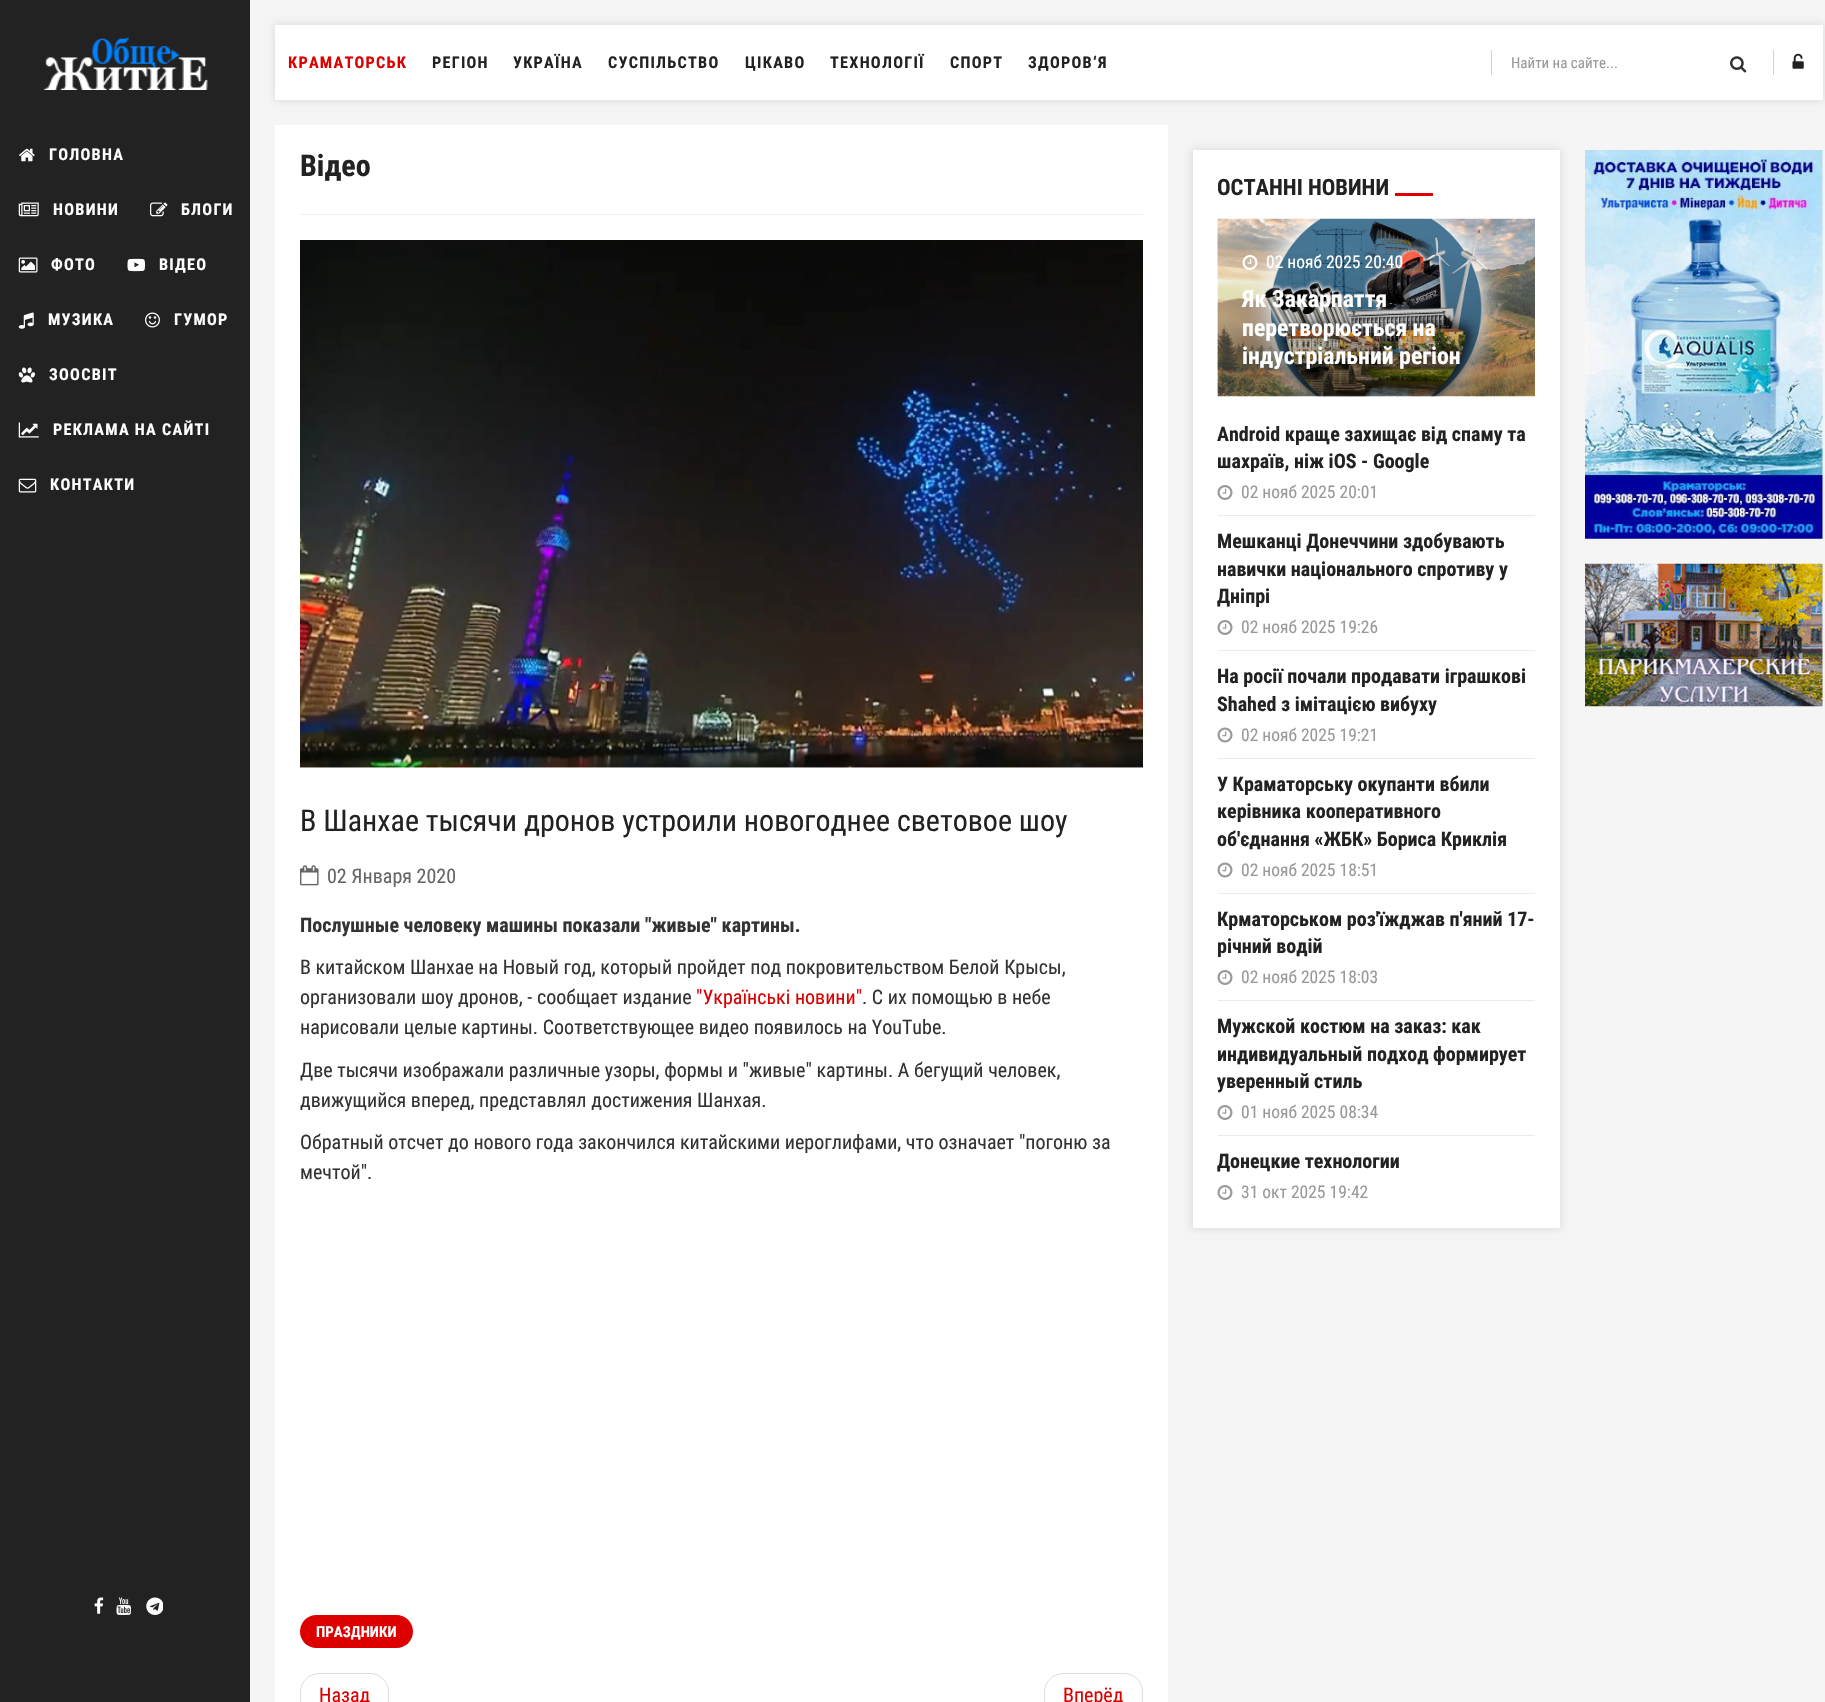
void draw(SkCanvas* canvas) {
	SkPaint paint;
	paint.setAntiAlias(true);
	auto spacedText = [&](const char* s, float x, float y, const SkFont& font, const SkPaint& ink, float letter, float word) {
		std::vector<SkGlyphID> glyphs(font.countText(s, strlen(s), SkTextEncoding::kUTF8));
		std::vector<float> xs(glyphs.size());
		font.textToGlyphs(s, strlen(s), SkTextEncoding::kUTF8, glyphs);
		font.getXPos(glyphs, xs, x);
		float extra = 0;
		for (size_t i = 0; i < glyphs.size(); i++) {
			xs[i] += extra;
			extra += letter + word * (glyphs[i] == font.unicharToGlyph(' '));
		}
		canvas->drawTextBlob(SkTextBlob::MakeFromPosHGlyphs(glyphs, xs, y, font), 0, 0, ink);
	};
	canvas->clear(0xfff5f5f5);
	paint.setColor(0xffdddddd);
	paint.setMaskFilter(SkMaskFilter::MakeBlur(kNormal_SkBlurStyle, 4));
	canvas->drawRect(SkRect::MakeXYWH(274, 24, 1550, 77), paint);
	paint.setMaskFilter(nullptr);
	paint.setColor(0xffffffff);
	canvas->drawRect(SkRect::MakeXYWH(275, 25, 1548, 75), paint);
	SkFont f1(fontMgr->matchFamilyStyle("Roboto Condensed", SkFontStyle::Bold()), 16.25);
	f1.setSubpixel(true);
	paint.setColor(0xffdd0000);
	spacedText("КРАМАТОРСЬК", 288, 68, f1, paint, 1.25, 0);
	paint.setColor(0xff222222);
	spacedText("РЕГІОН", 432, 68, f1, paint, 1.25, 0);
	spacedText("УКРАЇНА", 513, 68, f1, paint, 1.25, 0);
	spacedText("СУСПІЛЬСТВО", 608, 68, f1, paint, 1.25, 0);
	spacedText("ЦІКАВО", 745, 68, f1, paint, 1.25, 0);
	spacedText("ТЕХНОЛОГІЇ", 830, 68, f1, paint, 1.25, 0);
	spacedText("СПОРТ", 950, 68, f1, paint, 1.25, 0);
	spacedText("ЗДОРОВ‘Я", 1028, 68, f1, paint, 1.25, 0);
	paint.setColor(0xffd3d3d3);
	canvas->drawRect(SkRect::MakeXYWH(1491, 50, 1, 25), paint);
	SkFont f2(fontMgr->matchFamilyStyle("Roboto Condensed", SkFontStyle::Normal()), 15);
	f2.setSubpixel(true);
	paint.setColor(0xff999999);
	canvas->drawString("Найти на сайте...", 1511, 68, f2, paint);
	canvas->drawImageRect(SkImages::DeferredFromEncodedData(SkData::MakeFromFileName("img1.png")), SkRect::MakeXYWH(1730, 56, 17, 17), SkSamplingOptions());
	paint.setColor(0xffd3d3d3);
	canvas->drawRect(SkRect::MakeXYWH(1773, 50, 1, 25), paint);
	canvas->drawImageRect(SkImages::DeferredFromEncodedData(SkData::MakeFromFileName("img2.png")), SkRect::MakeXYWH(1792, 53, 12, 16), SkSamplingOptions());
	paint.setColor(0xff222222);
	canvas->drawRect(SkRect::MakeXYWH(0, 0, 250, 1702), paint);
	canvas->drawImageRect(SkImages::DeferredFromEncodedData(SkData::MakeFromFileName("img3.png")), SkRect::MakeXYWH(43, 37, 165, 53), SkSamplingOptions());
	canvas->drawImageRect(SkImages::DeferredFromEncodedData(SkData::MakeFromFileName("img4.png")), SkRect::MakeXYWH(19, 148, 16, 14), SkSamplingOptions());
	paint.setColor(0xffffffff);
	spacedText("ГОЛОВНА", 49, 160, f1, paint, 1.25, 0);
	canvas->drawImageRect(SkImages::DeferredFromEncodedData(SkData::MakeFromFileName("img5.png")), SkRect::MakeXYWH(18, 202, 21, 15), SkSamplingOptions());
	spacedText("НОВИНИ", 53, 215, f1, paint, 1.25, 0);
	canvas->drawImageRect(SkImages::DeferredFromEncodedData(SkData::MakeFromFileName("img6.png")), SkRect::MakeXYWH(150, 202, 18, 15), SkSamplingOptions());
	spacedText("БЛОГИ", 181, 215, f1, paint, 1.25, 0);
	canvas->drawImageRect(SkImages::DeferredFromEncodedData(SkData::MakeFromFileName("img7.png")), SkRect::MakeXYWH(18, 257, 20, 16), SkSamplingOptions());
	spacedText("ФОТО", 51, 270, f1, paint, 1.25, 0);
	canvas->drawImageRect(SkImages::DeferredFromEncodedData(SkData::MakeFromFileName("img8.png")), SkRect::MakeXYWH(127, 258, 18, 14), SkSamplingOptions());
	spacedText("ВІДЕО", 159, 270, f1, paint, 1.25, 0);
	canvas->drawImageRect(SkImages::DeferredFromEncodedData(SkData::MakeFromFileName("img9.png")), SkRect::MakeXYWH(18, 312, 16, 17), SkSamplingOptions());
	spacedText("МУЗИКА", 48, 325, f1, paint, 1.25, 0);
	canvas->drawImageRect(SkImages::DeferredFromEncodedData(SkData::MakeFromFileName("img10.png")), SkRect::MakeXYWH(145, 312, 15, 16), SkSamplingOptions());
	spacedText("ГУМОР", 174, 325, f1, paint, 1.25, 0);
	canvas->drawImageRect(SkImages::DeferredFromEncodedData(SkData::MakeFromFileName("img11.png")), SkRect::MakeXYWH(18, 367, 17, 16), SkSamplingOptions());
	spacedText("ЗООСВІТ", 49, 380, f1, paint, 1.25, 0);
	canvas->drawImageRect(SkImages::DeferredFromEncodedData(SkData::MakeFromFileName("img12.png")), SkRect::MakeXYWH(18, 422, 21, 16), SkSamplingOptions());
	spacedText("РЕКЛАМА НА САЙТІ", 53, 435, f1, paint, 1.25, 0);
	canvas->drawImageRect(SkImages::DeferredFromEncodedData(SkData::MakeFromFileName("img13.png")), SkRect::MakeXYWH(18, 478, 19, 15), SkSamplingOptions());
	spacedText("КОНТАКТИ", 50, 490, f1, paint, 1.25, 0);
	canvas->drawImageRect(SkImages::DeferredFromEncodedData(SkData::MakeFromFileName("img14.png")), SkRect::MakeXYWH(94, 1597, 10, 17), SkSamplingOptions());
	canvas->drawImageRect(SkImages::DeferredFromEncodedData(SkData::MakeFromFileName("img15.png")), SkRect::MakeXYWH(116, 1597, 15, 18), SkSamplingOptions());
	canvas->drawImageRect(SkImages::DeferredFromEncodedData(SkData::MakeFromFileName("img16.png")), SkRect::MakeXYWH(146, 1597, 17, 18), SkSamplingOptions());
	canvas->drawRect(SkRect::MakeXYWH(275, 125, 893, 1577), paint);
	paint.setColor(0xffeeeeee);
	canvas->drawRect(SkRect::MakeXYWH(300, 214, 843, 1), paint);
	SkFont f3(fontMgr->matchFamilyStyle("Roboto Condensed", SkFontStyle::Bold()), 30);
	f3.setSubpixel(true);
	paint.setColor(0xff222222);
	canvas->drawString("Відео", 300, 176, f3, paint);
	canvas->drawImageRect(SkImages::DeferredFromEncodedData(SkData::MakeFromFileName("img17.png")), SkRect::MakeXYWH(300, 240, 843, 528), SkSamplingOptions());
	SkFont f4(fontMgr->matchFamilyStyle("Roboto Condensed", SkFontStyle::Normal()), 30);
	f4.setSubpixel(true);
	canvas->drawString("В Шанхае тысячи дронов устроили новогоднее световое шоу", 300, 831, f4, paint);
	canvas->drawImageRect(SkImages::DeferredFromEncodedData(SkData::MakeFromFileName("img18.png")), SkRect::MakeXYWH(300, 865, 19, 21), SkSamplingOptions());
	SkFont f5(fontMgr->matchFamilyStyle("Roboto Condensed", SkFontStyle::Normal()), 20);
	f5.setSubpixel(true);
	paint.setColor(0xff666666);
	canvas->drawString("02 Января 2020", 327, 883, f5, paint);
	SkFont f6(fontMgr->matchFamilyStyle("Roboto Condensed", SkFontStyle::Bold()), 20);
	f6.setSubpixel(true);
	paint.setColor(0xff333333);
	canvas->drawString("Послушные человеку машины показали \"живые\" картины.", 300, 932, f6, paint);
	canvas->drawString("В китайском Шанхае на Новый год, который пройдет под покровительством Белой Крысы,", 300, 974, f5, paint);
	canvas->drawString("организовали шоу дронов, - сообщает издание", 300, 1004, f5, paint);
	paint.setColor(0xffdd0000);
	canvas->drawString("\"Українські новини\"", 696, 1004, f5, paint);
	paint.setColor(0xff333333);
	canvas->drawString(". С их помощью в небе", 862, 1004, f5, paint);
	canvas->drawString("нарисовали целые картины. Соответствующее видео появилось на YouTube.", 300, 1034, f5, paint);
	canvas->drawString("Две тысячи изображали различные узоры, формы и \"живые\" картины. А бегущий человек,", 300, 1077, f5, paint);
	canvas->drawString("движущийся вперед, представлял достижения Шанхая.", 300, 1107, f5, paint);
	canvas->drawString("Обратный отсчет до нового года закончился китайскими иероглифами, что означает \"погоню за", 300, 1149, f5, paint);
	canvas->drawString("мечтой\".", 300, 1179, f5, paint);
	paint.setColor(0xffdd0000);
	canvas->drawRoundRect(SkRect::MakeXYWH(300, 1615, 113, 33), 16.5, 16.5, paint);
	SkFont f7(fontMgr->matchFamilyStyle("Roboto Condensed", SkFontStyle::Bold()), 15);
	f7.setSubpixel(true);
	paint.setColor(0xffffffff);
	canvas->drawString("ПРАЗДНИКИ", 316, 1637, f7, paint);
	paint.setStroke(true);
	paint.setStrokeWidth(1);
	paint.setColor(0xffdddddd);
	canvas->drawRoundRect(SkRect::MakeXYWH(300.5, 1673.5, 88, 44), 18.5, 18.5, paint);
	paint.setStroke(false);
	paint.setColor(0xffdd0000);
	canvas->drawString("Назад", 319, 1702, f5, paint);
	paint.setStroke(true);
	paint.setColor(0xffdddddd);
	canvas->drawRoundRect(SkRect::MakeXYWH(1044.5, 1673.5, 98, 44), 18.5, 18.5, paint);
	paint.setStroke(false);
	paint.setColor(0xffdd0000);
	canvas->drawString("Вперёд", 1063, 1702, f5, paint);
	paint.setColor(0xffdddddd);
	paint.setMaskFilter(SkMaskFilter::MakeBlur(kNormal_SkBlurStyle, 4));
	canvas->drawRect(SkRect::MakeXYWH(1191, 149, 370, 1080), paint);
	paint.setMaskFilter(nullptr);
	paint.setColor(0xffffffff);
	canvas->drawRect(SkRect::MakeXYWH(1193, 150, 367, 1078), paint);
	SkFont f8(fontMgr->matchFamilyStyle("Roboto Condensed", SkFontStyle::Bold()), 22.5);
	f8.setSubpixel(true);
	paint.setColor(0xff222222);
	canvas->drawString("ОСТАННІ НОВИНИ", 1217, 195, f8, paint);
	paint.setColor(0xffdd0000);
	canvas->drawRect(SkRect::MakeXYWH(1395, 193, 38, 3), paint);
	canvas->drawImageRect(SkImages::DeferredFromEncodedData(SkData::MakeFromFileName("img19.png")), SkRect::MakeXYWH(1217, 218, 318, 179), SkSamplingOptions());
	{
		const SkColor colors[] = {0x00000000, 0x05000000, 0x14000000, 0x4f000000, 0x59000000};
		const float stops[] = {0, 0.19, 0.42, 0.87, 1};
		const SkPoint ends[] = {{1376, 219}, {1376, 396}};
		paint.setShader(SkGradientShader::MakeLinear(ends, colors, stops, 5, SkTileMode::kClamp));
		paint.setAlpha(255);
	}
	canvas->drawRect(SkRect::MakeXYWH(1218, 254, 317, 142), paint);
	canvas->drawImageRect(SkImages::DeferredFromEncodedData(SkData::MakeFromFileName("img20.png")), SkRect::MakeXYWH(1242, 255, 16, 15), SkSamplingOptions());
	SkFont f9(fontMgr->matchFamilyStyle("Roboto Condensed", SkFontStyle::Normal()), 17.5);
	f9.setSubpixel(true);
	paint.setShader(nullptr);
	paint.setColor(0xffffffff);
	canvas->drawString("02 нояб 2025 20:40", 1266, 268, f9, paint);
	SkFont f10(fontMgr->matchFamilyStyle("Roboto Condensed", SkFontStyle::Bold()), 23.75);
	f10.setSubpixel(true);
	canvas->drawString("Як Закарпаття", 1242, 307, f10, paint);
	canvas->drawString("перетворюється на", 1242, 336, f10, paint);
	canvas->drawString("індустріальний регіон", 1242, 364, f10, paint);
	paint.setColor(0xffebebeb);
	canvas->drawRect(SkRect::MakeXYWH(1218, 515, 317, 1), paint);
	paint.setColor(0xff222222);
	canvas->drawString("Android краще захищає від спаму та", 1217, 441, f6, paint);
	canvas->drawString("шахраїв, ніж iOS - Google", 1217, 468, f6, paint);
	canvas->drawImageRect(SkImages::DeferredFromEncodedData(SkData::MakeFromFileName("img21.png")), SkRect::MakeXYWH(1217, 485, 16, 15), SkSamplingOptions());
	paint.setColor(0xff999999);
	canvas->drawString("02 нояб 2025 20:01", 1241, 498, f9, paint);
	paint.setColor(0xffebebeb);
	canvas->drawRect(SkRect::MakeXYWH(1218, 650, 317, 1), paint);
	paint.setColor(0xff222222);
	canvas->drawString("Мешканці Донеччини здобувають", 1217, 548, f6, paint);
	canvas->drawString("навички національного спротиву у", 1217, 576, f6, paint);
	canvas->drawString("Дніпрі", 1217, 603, f6, paint);
	canvas->drawImageRect(SkImages::DeferredFromEncodedData(SkData::MakeFromFileName("img21.png")), SkRect::MakeXYWH(1217, 620, 16, 15), SkSamplingOptions());
	paint.setColor(0xff999999);
	canvas->drawString("02 нояб 2025 19:26", 1241, 633, f9, paint);
	paint.setColor(0xffebebeb);
	canvas->drawRect(SkRect::MakeXYWH(1218, 758, 317, 1), paint);
	paint.setColor(0xff222222);
	canvas->drawString("На росії почали продавати іграшкові", 1217, 683, f6, paint);
	canvas->drawString("Shahed з імітацією вибуху", 1217, 711, f6, paint);
	canvas->drawImageRect(SkImages::DeferredFromEncodedData(SkData::MakeFromFileName("img22.png")), SkRect::MakeXYWH(1217, 727, 16, 16), SkSamplingOptions());
	paint.setColor(0xff999999);
	canvas->drawString("02 нояб 2025 19:21", 1241, 741, f9, paint);
	paint.setColor(0xffebebeb);
	canvas->drawRect(SkRect::MakeXYWH(1218, 893, 317, 1), paint);
	paint.setColor(0xff222222);
	canvas->drawString("У Краматорську окупанти вбили", 1217, 791, f6, paint);
	canvas->drawString("керівника кооперативного", 1217, 818, f6, paint);
	canvas->drawString("об'єднання «ЖБК» Бориса Криклія", 1217, 846, f6, paint);
	canvas->drawImageRect(SkImages::DeferredFromEncodedData(SkData::MakeFromFileName("img22.png")), SkRect::MakeXYWH(1217, 862, 16, 16), SkSamplingOptions());
	paint.setColor(0xff999999);
	canvas->drawString("02 нояб 2025 18:51", 1241, 876, f9, paint);
	paint.setColor(0xffebebeb);
	canvas->drawRect(SkRect::MakeXYWH(1218, 1000, 317, 1), paint);
	paint.setColor(0xff222222);
	canvas->drawString("Крматорськом роз'їжджав п'яний 17-", 1217, 926, f6, paint);
	canvas->drawString("річний водій", 1217, 953, f6, paint);
	canvas->drawImageRect(SkImages::DeferredFromEncodedData(SkData::MakeFromFileName("img21.png")), SkRect::MakeXYWH(1217, 970, 16, 15), SkSamplingOptions());
	paint.setColor(0xff999999);
	canvas->drawString("02 нояб 2025 18:03", 1241, 983, f9, paint);
	paint.setColor(0xffebebeb);
	canvas->drawRect(SkRect::MakeXYWH(1218, 1135, 317, 1), paint);
	paint.setColor(0xff222222);
	canvas->drawString("Мужской костюм на заказ: как", 1217, 1033, f6, paint);
	canvas->drawString("индивидуальный подход формирует", 1217, 1061, f6, paint);
	canvas->drawString("уверенный стиль", 1217, 1088, f6, paint);
	canvas->drawImageRect(SkImages::DeferredFromEncodedData(SkData::MakeFromFileName("img21.png")), SkRect::MakeXYWH(1217, 1105, 16, 15), SkSamplingOptions());
	paint.setColor(0xff999999);
	canvas->drawString("01 нояб 2025 08:34", 1241, 1118, f9, paint);
	paint.setColor(0xff222222);
	canvas->drawString("Донецкие технологии", 1217, 1168, f6, paint);
	canvas->drawImageRect(SkImages::DeferredFromEncodedData(SkData::MakeFromFileName("img21.png")), SkRect::MakeXYWH(1217, 1185, 16, 15), SkSamplingOptions());
	paint.setColor(0xff999999);
	canvas->drawString("31 окт 2025 19:42", 1241, 1198, f9, paint);
	canvas->drawImageRect(SkImages::DeferredFromEncodedData(SkData::MakeFromFileName("img23.png")), SkRect::MakeXYWH(1585, 150, 238, 389), SkSamplingOptions());
	canvas->drawImageRect(SkImages::DeferredFromEncodedData(SkData::MakeFromFileName("img24.png")), SkRect::MakeXYWH(1585, 563, 238, 144), SkSamplingOptions());
}
